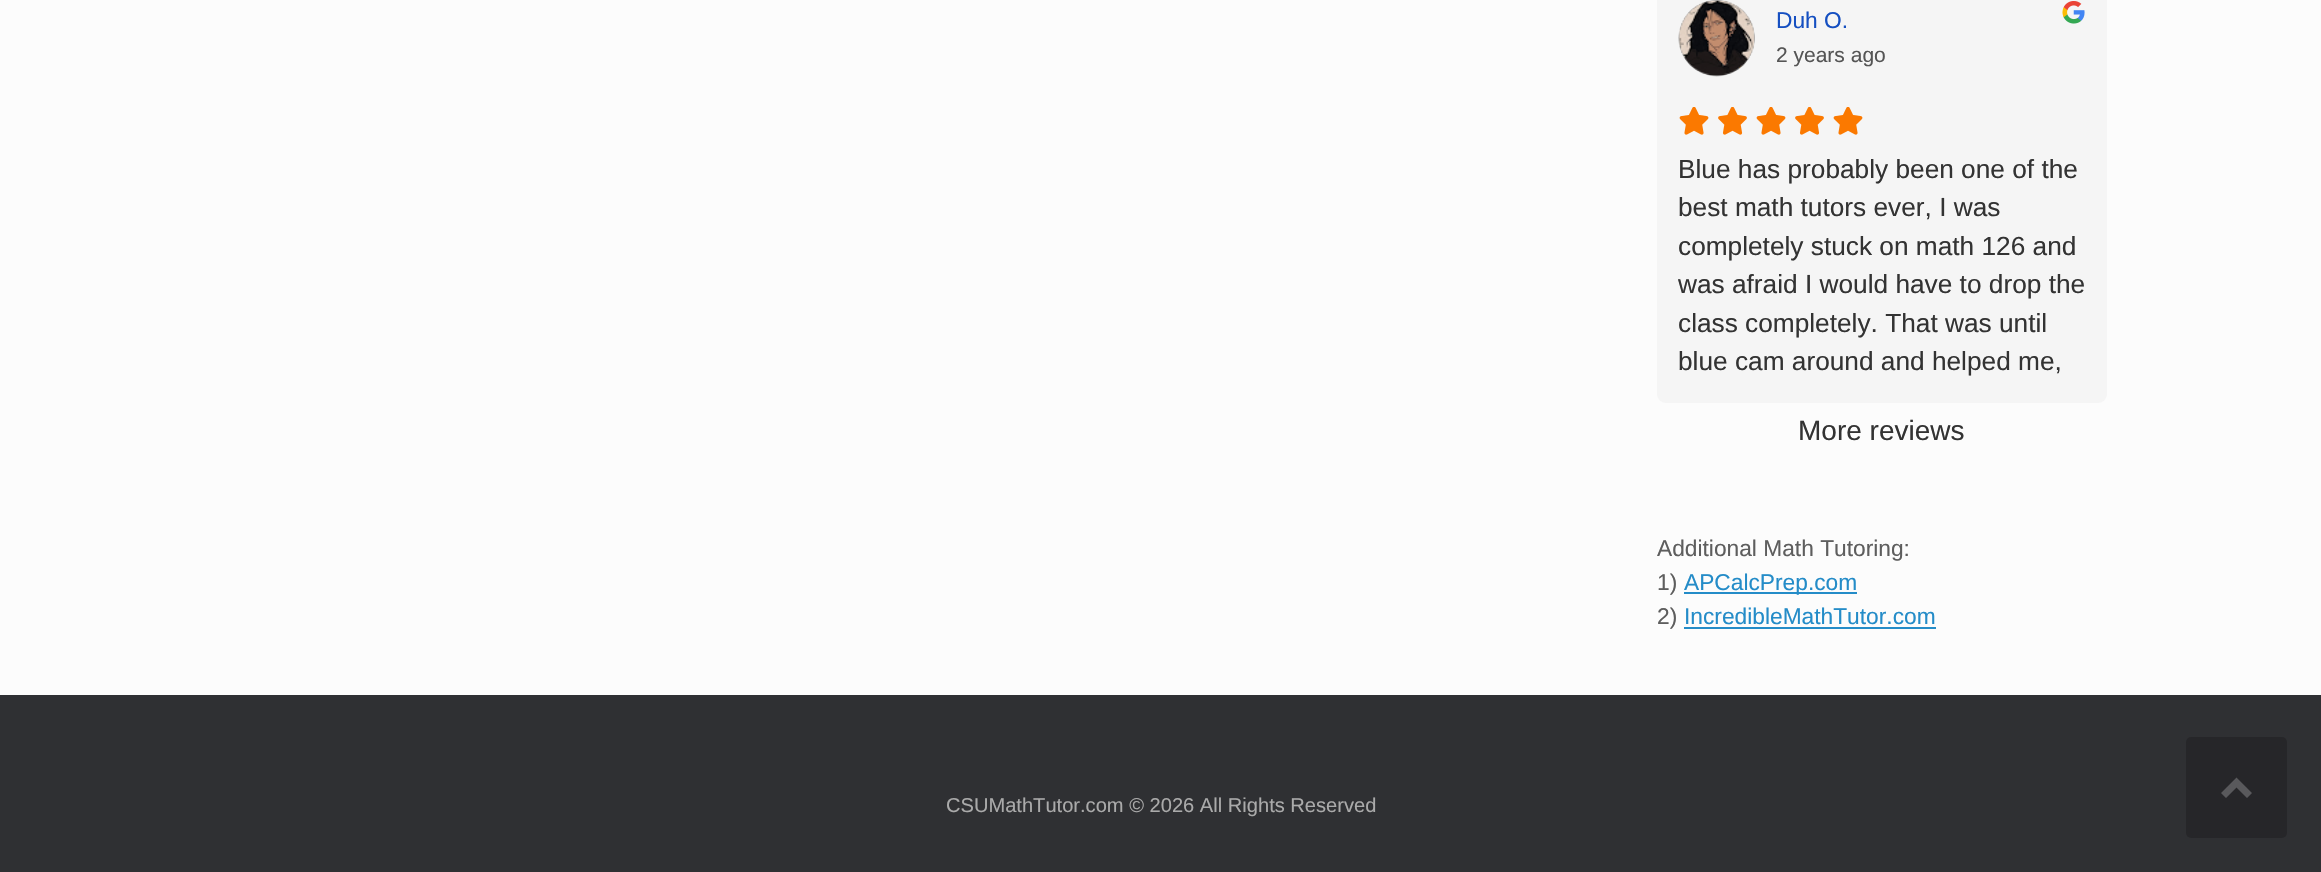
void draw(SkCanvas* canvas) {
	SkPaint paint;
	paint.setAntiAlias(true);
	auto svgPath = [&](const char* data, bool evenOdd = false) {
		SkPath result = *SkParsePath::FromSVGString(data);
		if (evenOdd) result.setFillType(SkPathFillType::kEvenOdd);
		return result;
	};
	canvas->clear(0xff2f3033);
	paint.setColor(0xfffcfcfc);
	canvas->drawRect(SkRect::MakeXYWH(0, 0, 2321, 695), paint);
	paint.setColor(0xfff5f5f5);
	canvas->drawRoundRect(SkRect::MakeXYWH(1657, -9, 450, 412), 9, 9, paint);
	canvas->drawImageRect(SkImages::DeferredFromEncodedData(SkData::MakeFromFileName("img1.png")), SkRect::MakeXYWH(1678, 0, 77, 77), SkSamplingOptions());
	SkFont f1(fontMgr->matchFamilyStyle("Liberation Sans", SkFontStyle::Normal()), 22.75);
	f1.setSubpixel(true);
	paint.setColor(0xff154fc1);
	canvas->drawString("Duh O.", 1776, 28, f1, paint);
	SkFont f2(fontMgr->matchFamilyStyle("Liberation Sans", SkFontStyle::Normal()), 21);
	f2.setSubpixel(true);
	paint.setColor(0xff555555);
	canvas->drawString("2 years ago", 1776, 62, f2, paint);
	canvas->drawImageRect(SkImages::DeferredFromEncodedData(SkData::MakeFromFileName("img2.png")), SkRect::MakeXYWH(2062, 1, 23, 23), SkSamplingOptions());
	canvas->drawImageRect(SkImages::DeferredFromEncodedData(SkData::MakeFromFileName("img3.png")), SkRect::MakeXYWH(1679, 107, 30, 28), SkSamplingOptions());
	canvas->drawImageRect(SkImages::DeferredFromEncodedData(SkData::MakeFromFileName("img4.png")), SkRect::MakeXYWH(1718, 107, 29, 28), SkSamplingOptions());
	canvas->drawImageRect(SkImages::DeferredFromEncodedData(SkData::MakeFromFileName("img3.png")), SkRect::MakeXYWH(1756, 107, 30, 28), SkSamplingOptions());
	canvas->drawImageRect(SkImages::DeferredFromEncodedData(SkData::MakeFromFileName("img4.png")), SkRect::MakeXYWH(1795, 107, 29, 28), SkSamplingOptions());
	canvas->drawImageRect(SkImages::DeferredFromEncodedData(SkData::MakeFromFileName("img3.png")), SkRect::MakeXYWH(1833, 107, 30, 28), SkSamplingOptions());
	SkFont f3(fontMgr->matchFamilyStyle("Liberation Sans", SkFontStyle::Normal()), 26.25);
	f3.setSubpixel(true);
	paint.setColor(0xff333333);
	canvas->drawString("Blue has probably been one of the", 1678, 178, f3, paint);
	canvas->drawString("best math tutors ever, I was", 1678, 216, f3, paint);
	canvas->drawString("completely stuck on math 126 and", 1678, 255, f3, paint);
	canvas->drawString("was afraid I would have to drop the", 1678, 293, f3, paint);
	canvas->drawString("class completely. That was until", 1678, 332, f3, paint);
	canvas->drawString("blue cam around and helped me,", 1678, 370, f3, paint);
	SkFont f4(fontMgr->matchFamilyStyle("Liberation Sans", SkFontStyle::Normal()), 28);
	f4.setSubpixel(true);
	canvas->drawString("More reviews", 1798, 440, f4, paint);
	paint.setColor(0xff5e5e5e);
	canvas->drawString("Additional Math Tutoring:", 1657, 556, f1, paint);
	canvas->drawString("1)", 1657, 590, f1, paint);
	paint.setColor(0xff248cc8);
	canvas->drawRect(SkRect::MakeXYWH(1684, 592, 173, 2), paint);
	canvas->drawString("APCalcPrep.com", 1684, 590, f1, paint);
	paint.setColor(0xff5e5e5e);
	canvas->drawString("2)", 1657, 624, f1, paint);
	paint.setColor(0xff248cc8);
	canvas->drawString("IncredibleMathTutor.com", 1684, 624, f1, paint);
	canvas->drawRect(SkRect::MakeXYWH(1684, 627, 252, 2), paint);
	SkFont f5(fontMgr->matchFamilyStyle("Liberation Sans", SkFontStyle::Normal()), 20.1);
	f5.setSubpixel(true);
	paint.setColor(0xffaaaaaa);
	canvas->drawString("CSUMathTutor.com © 2026 All Rights Reserved", 946, 812, f5, paint);
	paint.setColor(0xff262629);
	canvas->drawRoundRect(SkRect::MakeXYWH(2186, 737, 101, 101), 5, 5, paint);
	paint.setColor(0xff59595c);
	canvas->drawPath(svgPath("M2252 793L2236.5 777.5L2221 793L2226 798L2236.5 787.5L2247 798Z"), paint);
}
